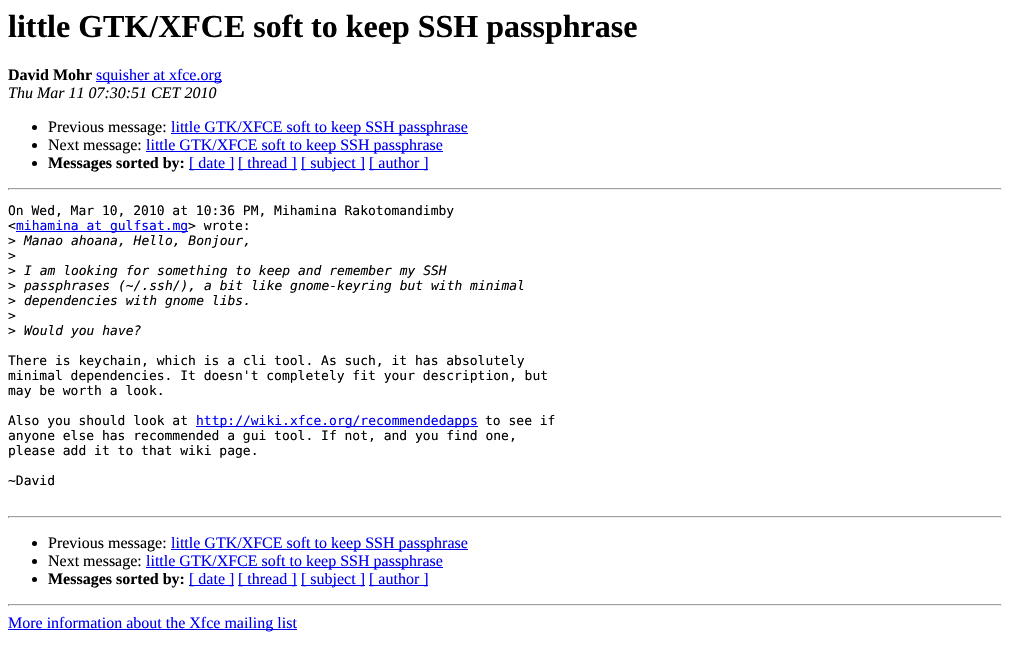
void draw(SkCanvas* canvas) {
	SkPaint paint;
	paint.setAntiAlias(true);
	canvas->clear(0xffffffff);
	SkFont f1(fontMgr->matchFamilyStyle("Liberation Serif", SkFontStyle::Bold()), 32);
	f1.setSubpixel(true);
	paint.setColor(0xff000000);
	canvas->drawString("little GTK/XFCE soft to keep SSH passphrase", 8, 37, f1, paint);
	SkFont f2(fontMgr->matchFamilyStyle("Liberation Serif", SkFontStyle::Bold()), 16);
	f2.setSubpixel(true);
	canvas->drawString("David Mohr", 8, 80, f2, paint);
	paint.setColor(0xff0000ee);
	canvas->drawRect(SkRect::MakeXYWH(96, 81, 126, 1), paint);
	SkFont f3(fontMgr->matchFamilyStyle("Liberation Serif", SkFontStyle::Normal()), 16);
	f3.setSubpixel(true);
	canvas->drawString("squisher at xfce.org", 96, 80, f3, paint);
	SkFont f4(fontMgr->matchFamilyStyle("Liberation Serif", SkFontStyle::Italic()), 16);
	f4.setSubpixel(true);
	paint.setColor(0xff000000);
	canvas->drawString("Thu Mar 11 07:30:51 CET 2010", 8, 98, f4, paint);
	canvas->drawCircle(34.5, 127.5, 2.5, paint);
	canvas->drawString("Previous message:", 48, 132, f3, paint);
	paint.setColor(0xff0000ee);
	canvas->drawRect(SkRect::MakeXYWH(171, 133, 297, 1), paint);
	canvas->drawString("little GTK/XFCE soft to keep SSH passphrase", 171, 132, f3, paint);
	paint.setColor(0xff000000);
	canvas->drawCircle(34.5, 145.5, 2.5, paint);
	canvas->drawString("Next message:", 48, 150, f3, paint);
	paint.setColor(0xff0000ee);
	canvas->drawRect(SkRect::MakeXYWH(146, 151, 297, 1), paint);
	canvas->drawString("little GTK/XFCE soft to keep SSH passphrase", 146, 150, f3, paint);
	paint.setColor(0xff000000);
	canvas->drawCircle(34.5, 163.5, 2.5, paint);
	canvas->drawString("Messages sorted by:", 48, 168, f2, paint);
	paint.setColor(0xff0000ee);
	canvas->drawRect(SkRect::MakeXYWH(189, 169, 45, 1), paint);
	canvas->drawString("[ date ]", 189, 168, f3, paint);
	canvas->drawRect(SkRect::MakeXYWH(238, 169, 59, 1), paint);
	canvas->drawString("[ thread ]", 238, 168, f3, paint);
	canvas->drawRect(SkRect::MakeXYWH(301, 169, 64, 1), paint);
	canvas->drawString("[ subject ]", 301, 168, f3, paint);
	canvas->drawRect(SkRect::MakeXYWH(369, 169, 59, 1), paint);
	canvas->drawString("[ author ]", 369, 168, f3, paint);
	paint.setColor(0xff9f9f9f);
	canvas->drawRect(SkRect::MakeXYWH(8, 188, 994, 1), paint);
	paint.setColor(0xffeeeeee);
	canvas->drawRect(SkRect::MakeXYWH(1001, 188, 1, 2), paint);
	canvas->drawRect(SkRect::MakeXYWH(8, 189, 994, 1), paint);
	paint.setColor(0xff9f9f9f);
	canvas->drawRect(SkRect::MakeXYWH(8, 188, 1, 2), paint);
	SkFont f5(fontMgr->matchFamilyStyle("DejaVu Sans Mono", SkFontStyle::Normal()), 13);
	f5.setSubpixel(true);
	paint.setColor(0xff000000);
	canvas->drawString("On Wed, Mar 10, 2010 at 10:36 PM, Mihamina Rakotomandimby", 8, 215, f5, paint);
	canvas->drawString("<", 8, 230, f5, paint);
	paint.setColor(0xff0000ee);
	canvas->drawRect(SkRect::MakeXYWH(16, 231, 172, 1), paint);
	canvas->drawString("mihamina at gulfsat.mg", 16, 230, f5, paint);
	paint.setColor(0xff000000);
	canvas->drawString("> wrote:", 188, 230, f5, paint);
	canvas->drawString(">", 8, 245, f5, paint);
	SkFont f6(fontMgr->matchFamilyStyle("DejaVu Sans Mono", SkFontStyle::Italic()), 13);
	f6.setSubpixel(true);
	canvas->drawString("Manao ahoana, Hello, Bonjour,", 24, 245, f6, paint);
	canvas->drawString(">", 8, 260, f5, paint);
	canvas->drawString(">", 8, 275, f5, paint);
	canvas->drawString("I am looking for something to keep and remember my SSH", 24, 275, f6, paint);
	canvas->drawString(">", 8, 290, f5, paint);
	canvas->drawString("passphrases (~/.ssh/), a bit like gnome-keyring but with minimal", 24, 290, f6, paint);
	canvas->drawString(">", 8, 305, f5, paint);
	canvas->drawString("dependencies with gnome libs.", 24, 305, f6, paint);
	canvas->drawString(">", 8, 320, f5, paint);
	canvas->drawString(">", 8, 335, f5, paint);
	canvas->drawString("Would you have?", 24, 335, f6, paint);
	canvas->drawString("There is keychain, which is a cli tool. As such, it has absolutely", 8, 365, f5, paint);
	canvas->drawString("minimal dependencies. It doesn't completely fit your description, but", 8, 380, f5, paint);
	canvas->drawString("may be worth a look.", 8, 395, f5, paint);
	canvas->drawString("Also you should look at", 8, 425, f5, paint);
	paint.setColor(0xff0000ee);
	canvas->drawRect(SkRect::MakeXYWH(196, 426, 282, 1), paint);
	canvas->drawString("http://wiki.xfce.org/recommendedapps", 196, 425, f5, paint);
	paint.setColor(0xff000000);
	canvas->drawString("to see if", 485, 425, f5, paint);
	canvas->drawString("anyone else has recommended a gui tool. If not, and you find one,", 8, 440, f5, paint);
	canvas->drawString("please add it to that wiki page.", 8, 455, f5, paint);
	canvas->drawString("~David", 8, 485, f5, paint);
	paint.setColor(0xff9f9f9f);
	canvas->drawRect(SkRect::MakeXYWH(8, 516, 994, 1), paint);
	paint.setColor(0xffeeeeee);
	canvas->drawRect(SkRect::MakeXYWH(1001, 516, 1, 2), paint);
	canvas->drawRect(SkRect::MakeXYWH(8, 517, 994, 1), paint);
	paint.setColor(0xff9f9f9f);
	canvas->drawRect(SkRect::MakeXYWH(8, 516, 1, 2), paint);
	paint.setColor(0xff000000);
	canvas->drawCircle(34.5, 543.5, 2.5, paint);
	canvas->drawString("Previous message:", 48, 548, f3, paint);
	paint.setColor(0xff0000ee);
	canvas->drawRect(SkRect::MakeXYWH(171, 549, 297, 1), paint);
	canvas->drawString("little GTK/XFCE soft to keep SSH passphrase", 171, 548, f3, paint);
	paint.setColor(0xff000000);
	canvas->drawCircle(34.5, 561.5, 2.5, paint);
	canvas->drawString("Next message:", 48, 566, f3, paint);
	paint.setColor(0xff0000ee);
	canvas->drawRect(SkRect::MakeXYWH(146, 567, 297, 1), paint);
	canvas->drawString("little GTK/XFCE soft to keep SSH passphrase", 146, 566, f3, paint);
	paint.setColor(0xff000000);
	canvas->drawCircle(34.5, 579.5, 2.5, paint);
	canvas->drawString("Messages sorted by:", 48, 584, f2, paint);
	paint.setColor(0xff0000ee);
	canvas->drawRect(SkRect::MakeXYWH(189, 585, 45, 1), paint);
	canvas->drawString("[ date ]", 189, 584, f3, paint);
	canvas->drawRect(SkRect::MakeXYWH(238, 585, 59, 1), paint);
	canvas->drawString("[ thread ]", 238, 584, f3, paint);
	canvas->drawRect(SkRect::MakeXYWH(301, 585, 64, 1), paint);
	canvas->drawString("[ subject ]", 301, 584, f3, paint);
	canvas->drawRect(SkRect::MakeXYWH(369, 585, 59, 1), paint);
	canvas->drawString("[ author ]", 369, 584, f3, paint);
	paint.setColor(0xff9f9f9f);
	canvas->drawRect(SkRect::MakeXYWH(8, 604, 994, 1), paint);
	paint.setColor(0xffeeeeee);
	canvas->drawRect(SkRect::MakeXYWH(1001, 604, 1, 2), paint);
	canvas->drawRect(SkRect::MakeXYWH(8, 605, 994, 1), paint);
	paint.setColor(0xff9f9f9f);
	canvas->drawRect(SkRect::MakeXYWH(8, 604, 1, 2), paint);
	paint.setColor(0xff0000ee);
	canvas->drawRect(SkRect::MakeXYWH(8, 629, 289, 1), paint);
	canvas->drawString("More information about the Xfce mailing list", 8, 628, f3, paint);
}
